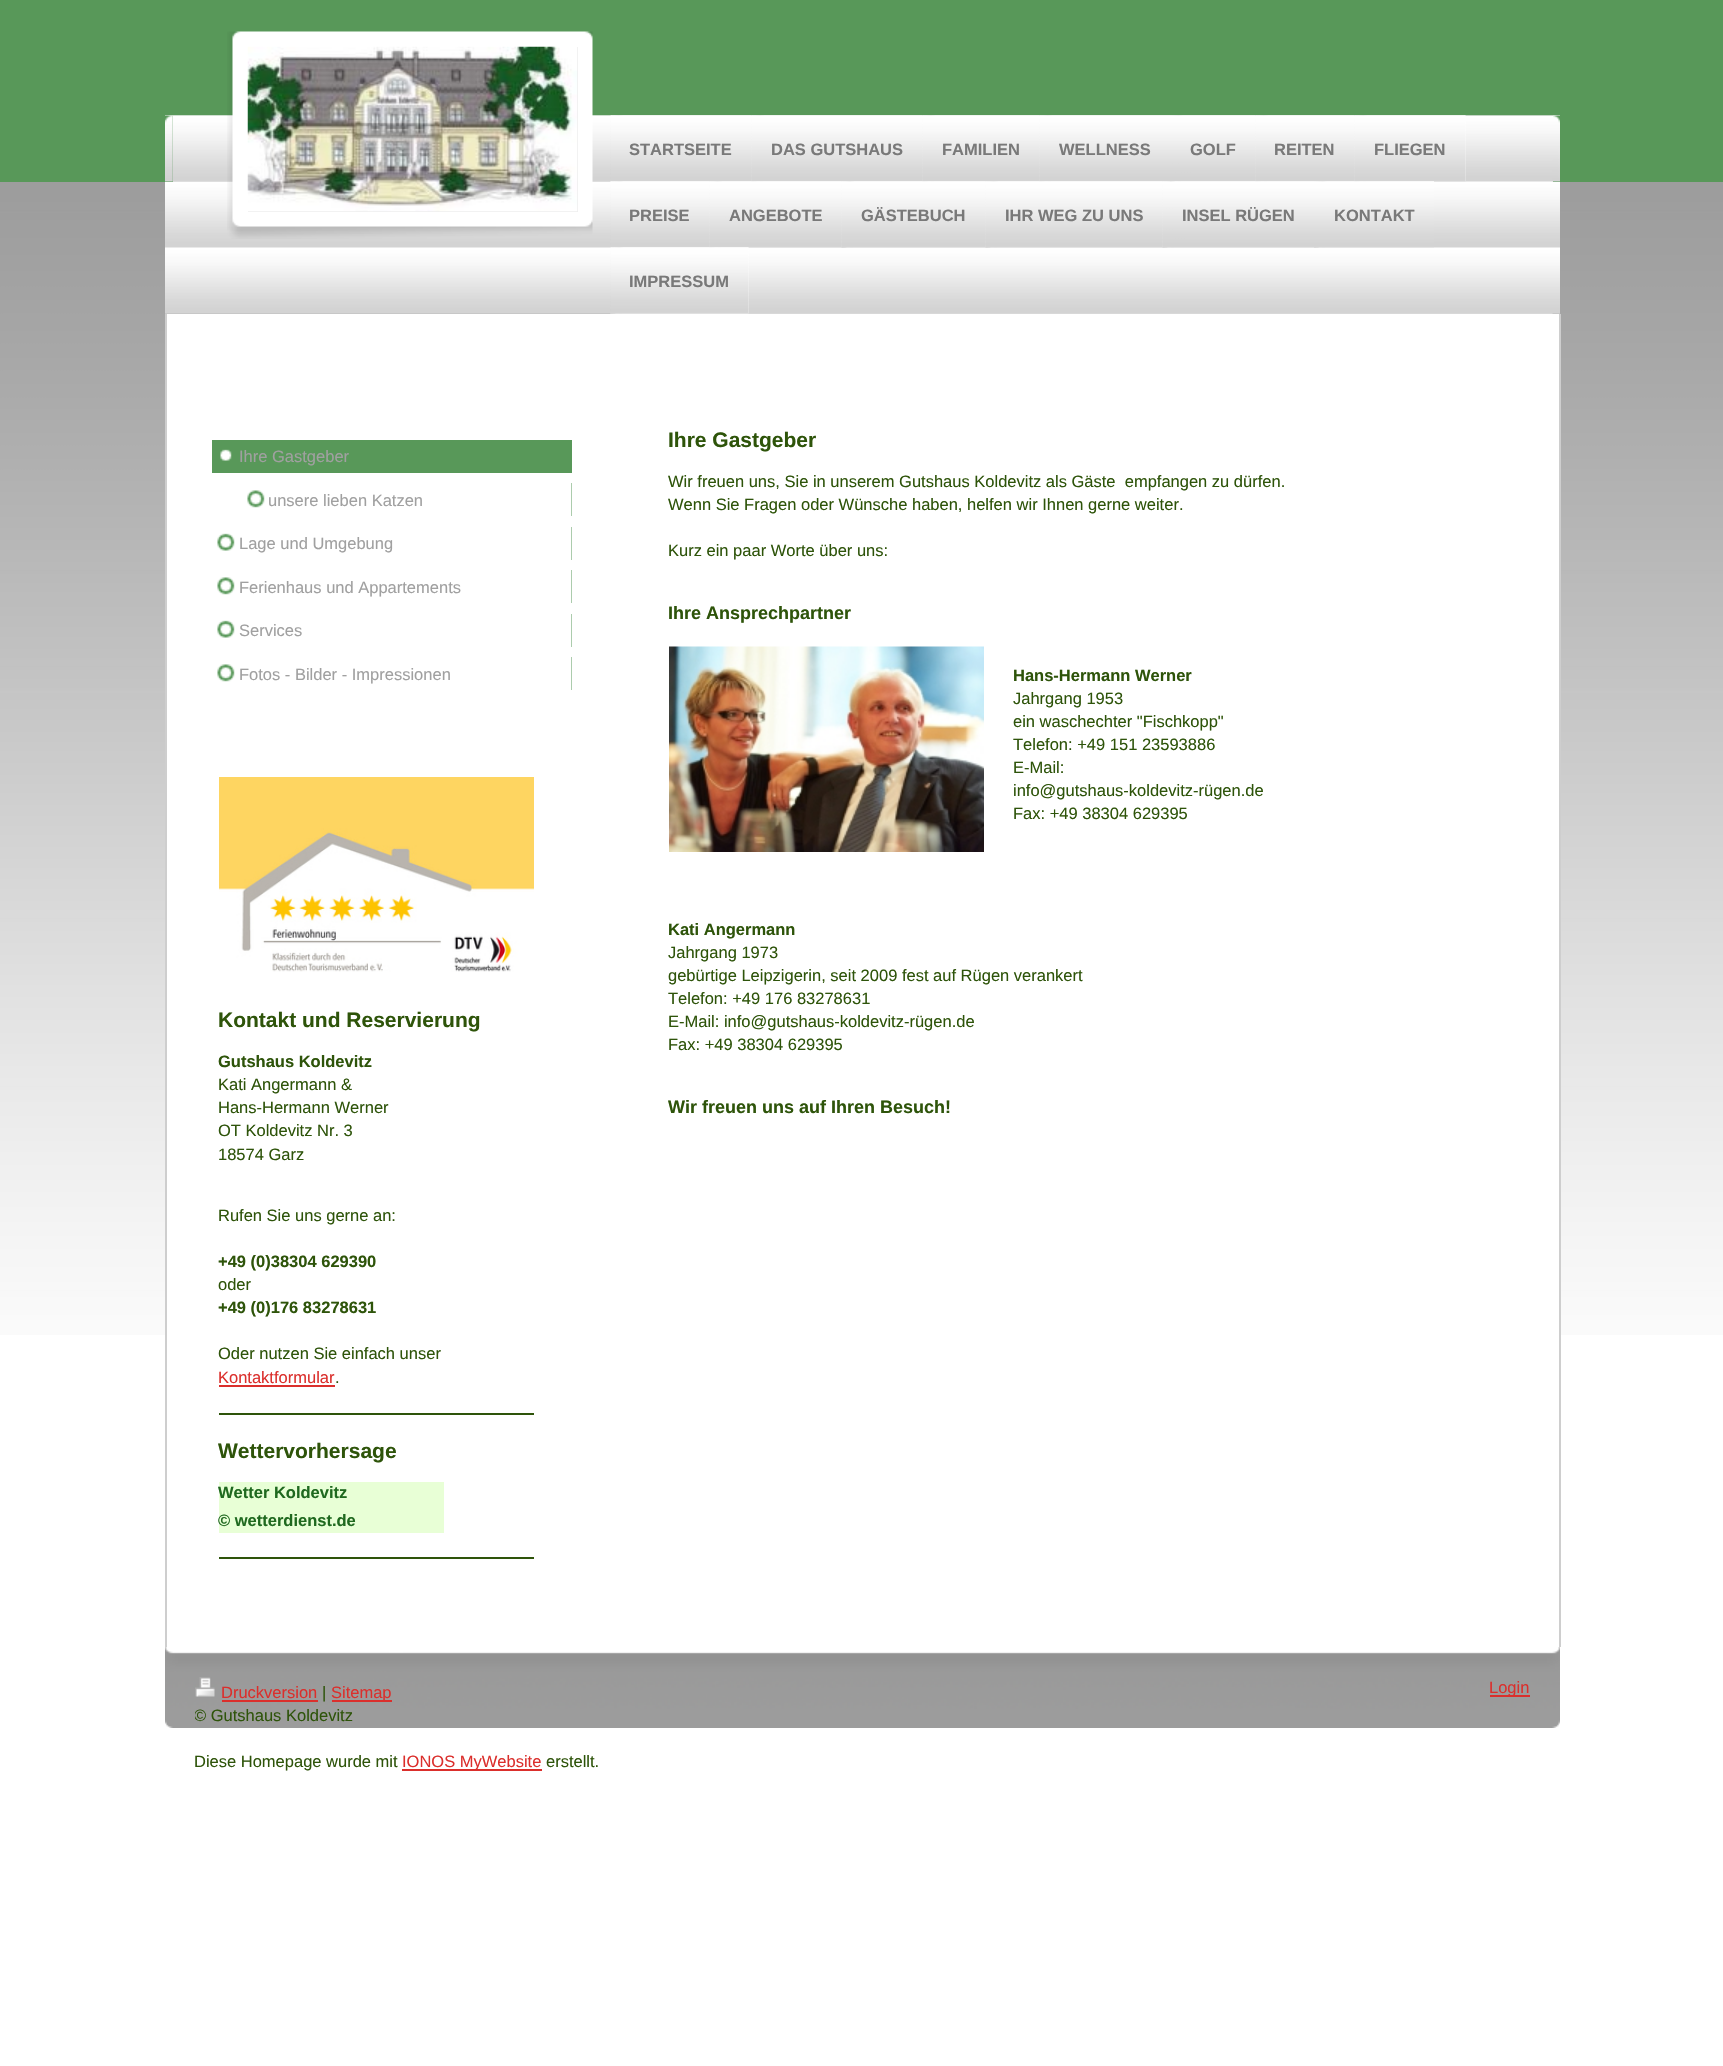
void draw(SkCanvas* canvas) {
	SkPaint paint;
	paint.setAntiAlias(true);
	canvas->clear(0xffffffff);
	paint.setColor(0xff589859);
	canvas->drawRect(SkRect::MakeXYWH(0, 0, 1723, 182), paint);
	canvas->drawImageRect(SkImages::DeferredFromEncodedData(SkData::MakeFromFileName("img1.png")), SkRect::MakeXYWH(0, 182, 1723, 1153), SkSamplingOptions());
	canvas->drawImageRect(SkImages::DeferredFromEncodedData(SkData::MakeFromFileName("img4.png")), SkRect::MakeXYWH(165, 115, 1395, 199), SkSamplingOptions());
	canvas->drawRect(SkRect::MakeXYWH(165, 116, 8, 66), paint);
	canvas->drawImageRect(SkImages::DeferredFromEncodedData(SkData::MakeFromFileName("img5.png")), SkRect::MakeXYWH(165, 115, 8, 67), SkSamplingOptions());
	canvas->drawImageRect(SkImages::DeferredFromEncodedData(SkData::MakeFromFileName("img6.png")), SkRect::MakeXYWH(172, 115, 439, 67), SkSamplingOptions());
	canvas->drawImageRect(SkImages::DeferredFromEncodedData(SkData::MakeFromFileName("img2.png")), SkRect::MakeXYWH(227, 31, 366, 208), SkSamplingOptions());
	paint.setColor(0xffeeeeee);
	canvas->drawRect(SkRect::MakeXYWH(248, 47, 330, 165), paint);
	canvas->drawImageRect(SkImages::DeferredFromEncodedData(SkData::MakeFromFileName("img3.png")), SkRect::MakeXYWH(247, 46, 331, 166), SkSamplingOptions());
	canvas->drawImageRect(SkImages::DeferredFromEncodedData(SkData::MakeFromFileName("img7.png")), SkRect::MakeXYWH(610, 115, 943, 199), SkSamplingOptions());
	canvas->drawImageRect(SkImages::DeferredFromEncodedData(SkData::MakeFromFileName("img8.png")), SkRect::MakeXYWH(610, 115, 142, 67), SkSamplingOptions());
	canvas->drawImageRect(SkImages::DeferredFromEncodedData(SkData::MakeFromFileName("img9.png")), SkRect::MakeXYWH(610, 115, 142, 67), SkSamplingOptions());
	SkFont f1(fontMgr->matchFamilyStyle("Liberation Sans", SkFontStyle::Bold()), 16.5);
	f1.setSubpixel(true);
	paint.setColor(0xff797979);
	canvas->drawString("STARTSEITE", 629, 155, f1, paint);
	canvas->drawImageRect(SkImages::DeferredFromEncodedData(SkData::MakeFromFileName("img10.png")), SkRect::MakeXYWH(751, 115, 172, 67), SkSamplingOptions());
	canvas->drawImageRect(SkImages::DeferredFromEncodedData(SkData::MakeFromFileName("img11.png")), SkRect::MakeXYWH(751, 115, 172, 67), SkSamplingOptions());
	canvas->drawString("DAS GUTSHAUS", 771, 155, f1, paint);
	canvas->drawImageRect(SkImages::DeferredFromEncodedData(SkData::MakeFromFileName("img12.png")), SkRect::MakeXYWH(922, 115, 118, 67), SkSamplingOptions());
	canvas->drawImageRect(SkImages::DeferredFromEncodedData(SkData::MakeFromFileName("img13.png")), SkRect::MakeXYWH(922, 115, 118, 67), SkSamplingOptions());
	canvas->drawString("FAMILIEN", 942, 155, f1, paint);
	canvas->drawImageRect(SkImages::DeferredFromEncodedData(SkData::MakeFromFileName("img14.png")), SkRect::MakeXYWH(1039, 115, 131, 67), SkSamplingOptions());
	canvas->drawImageRect(SkImages::DeferredFromEncodedData(SkData::MakeFromFileName("img15.png")), SkRect::MakeXYWH(1039, 115, 131, 67), SkSamplingOptions());
	canvas->drawString("WELLNESS", 1059, 155, f1, paint);
	canvas->drawImageRect(SkImages::DeferredFromEncodedData(SkData::MakeFromFileName("img16.png")), SkRect::MakeXYWH(1170, 115, 86, 67), SkSamplingOptions());
	canvas->drawImageRect(SkImages::DeferredFromEncodedData(SkData::MakeFromFileName("img17.png")), SkRect::MakeXYWH(1170, 115, 86, 67), SkSamplingOptions());
	canvas->drawString("GOLF", 1190, 155, f1, paint);
	canvas->drawImageRect(SkImages::DeferredFromEncodedData(SkData::MakeFromFileName("img18.png")), SkRect::MakeXYWH(1255, 115, 100, 67), SkSamplingOptions());
	canvas->drawImageRect(SkImages::DeferredFromEncodedData(SkData::MakeFromFileName("img19.png")), SkRect::MakeXYWH(1255, 115, 100, 67), SkSamplingOptions());
	canvas->drawString("REITEN", 1274, 155, f1, paint);
	canvas->drawImageRect(SkImages::DeferredFromEncodedData(SkData::MakeFromFileName("img20.png")), SkRect::MakeXYWH(1354, 115, 112, 67), SkSamplingOptions());
	canvas->drawImageRect(SkImages::DeferredFromEncodedData(SkData::MakeFromFileName("img21.png")), SkRect::MakeXYWH(1354, 115, 112, 67), SkSamplingOptions());
	canvas->drawString("FLIEGEN", 1374, 155, f1, paint);
	canvas->drawImageRect(SkImages::DeferredFromEncodedData(SkData::MakeFromFileName("img22.png")), SkRect::MakeXYWH(610, 181, 100, 67), SkSamplingOptions());
	canvas->drawImageRect(SkImages::DeferredFromEncodedData(SkData::MakeFromFileName("img23.png")), SkRect::MakeXYWH(610, 181, 100, 67), SkSamplingOptions());
	canvas->drawString("PREISE", 629, 221, f1, paint);
	canvas->drawImageRect(SkImages::DeferredFromEncodedData(SkData::MakeFromFileName("img24.png")), SkRect::MakeXYWH(709, 181, 133, 67), SkSamplingOptions());
	canvas->drawImageRect(SkImages::DeferredFromEncodedData(SkData::MakeFromFileName("img25.png")), SkRect::MakeXYWH(709, 181, 133, 67), SkSamplingOptions());
	canvas->drawString("ANGEBOTE", 729, 221, f1, paint);
	canvas->drawImageRect(SkImages::DeferredFromEncodedData(SkData::MakeFromFileName("img26.png")), SkRect::MakeXYWH(841, 181, 145, 67), SkSamplingOptions());
	canvas->drawImageRect(SkImages::DeferredFromEncodedData(SkData::MakeFromFileName("img27.png")), SkRect::MakeXYWH(841, 181, 145, 67), SkSamplingOptions());
	canvas->drawString("GÄSTEBUCH", 861, 221, f1, paint);
	canvas->drawImageRect(SkImages::DeferredFromEncodedData(SkData::MakeFromFileName("img28.png")), SkRect::MakeXYWH(985, 181, 178, 67), SkSamplingOptions());
	canvas->drawImageRect(SkImages::DeferredFromEncodedData(SkData::MakeFromFileName("img29.png")), SkRect::MakeXYWH(985, 181, 178, 67), SkSamplingOptions());
	canvas->drawString("IHR WEG ZU UNS", 1005, 221, f1, paint);
	canvas->drawImageRect(SkImages::DeferredFromEncodedData(SkData::MakeFromFileName("img30.png")), SkRect::MakeXYWH(1162, 181, 152, 67), SkSamplingOptions());
	canvas->drawImageRect(SkImages::DeferredFromEncodedData(SkData::MakeFromFileName("img31.png")), SkRect::MakeXYWH(1162, 181, 152, 67), SkSamplingOptions());
	canvas->drawString("INSEL RÜGEN", 1182, 221, f1, paint);
	canvas->drawImageRect(SkImages::DeferredFromEncodedData(SkData::MakeFromFileName("img32.png")), SkRect::MakeXYWH(1314, 181, 120, 67), SkSamplingOptions());
	canvas->drawImageRect(SkImages::DeferredFromEncodedData(SkData::MakeFromFileName("img33.png")), SkRect::MakeXYWH(1314, 181, 120, 67), SkSamplingOptions());
	canvas->drawString("KONTAKT", 1334, 221, f1, paint);
	canvas->drawImageRect(SkImages::DeferredFromEncodedData(SkData::MakeFromFileName("img34.png")), SkRect::MakeXYWH(610, 247, 139, 67), SkSamplingOptions());
	canvas->drawImageRect(SkImages::DeferredFromEncodedData(SkData::MakeFromFileName("img35.png")), SkRect::MakeXYWH(610, 247, 139, 67), SkSamplingOptions());
	canvas->drawString("IMPRESSUM", 629, 287, f1, paint);
	paint.setColor(0xff589859);
	canvas->drawRect(SkRect::MakeXYWH(1553, 116, 7, 66), paint);
	canvas->drawImageRect(SkImages::DeferredFromEncodedData(SkData::MakeFromFileName("img36.png")), SkRect::MakeXYWH(1552, 115, 8, 67), SkSamplingOptions());
	paint.setColor(0xffffffff);
	canvas->drawRect(SkRect::MakeXYWH(167, 314, 1392, 1021), paint);
	paint.setColor(0xffcecece);
	canvas->drawRect(SkRect::MakeXYWH(1559, 314, 2, 1333), paint);
	canvas->drawRect(SkRect::MakeXYWH(165, 314, 2, 1333), paint);
	paint.setColor(0xff589859);
	canvas->drawRect(SkRect::MakeXYWH(212, 440, 360, 250), paint);
	canvas->drawImageRect(SkImages::DeferredFromEncodedData(SkData::MakeFromFileName("img37.png")), SkRect::MakeXYWH(220, 449, 12, 12), SkSamplingOptions());
	paint.setColor(0xffffffff);
	canvas->drawRect(SkRect::MakeXYWH(212, 473, 360, 10), paint);
	SkFont f2(fontMgr->matchFamilyStyle("Liberation Sans", SkFontStyle::Normal()), 16.5);
	f2.setSubpixel(true);
	paint.setColor(0xffa0a0a0);
	canvas->drawString("Ihre Gastgeber", 239, 462, f2, paint);
	canvas->drawImageRect(SkImages::DeferredFromEncodedData(SkData::MakeFromFileName("img38.png")), SkRect::MakeXYWH(212, 483, 360, 33), SkSamplingOptions());
	paint.setColor(0xffffffff);
	canvas->drawRect(SkRect::MakeXYWH(212, 516, 360, 11), paint);
	paint.setColor(0xffa0a0a0);
	canvas->drawString("unsere lieben Katzen", 268, 506, f2, paint);
	canvas->drawImageRect(SkImages::DeferredFromEncodedData(SkData::MakeFromFileName("img39.png")), SkRect::MakeXYWH(212, 527, 360, 33), SkSamplingOptions());
	paint.setColor(0xffffffff);
	canvas->drawRect(SkRect::MakeXYWH(212, 560, 360, 10), paint);
	paint.setColor(0xffa0a0a0);
	canvas->drawString("Lage und Umgebung", 239, 549, f2, paint);
	canvas->drawImageRect(SkImages::DeferredFromEncodedData(SkData::MakeFromFileName("img40.png")), SkRect::MakeXYWH(212, 570, 360, 33), SkSamplingOptions());
	paint.setColor(0xffffffff);
	canvas->drawRect(SkRect::MakeXYWH(212, 603, 360, 11), paint);
	paint.setColor(0xffa0a0a0);
	canvas->drawString("Ferienhaus und Appartements", 239, 593, f2, paint);
	canvas->drawImageRect(SkImages::DeferredFromEncodedData(SkData::MakeFromFileName("img39.png")), SkRect::MakeXYWH(212, 614, 360, 33), SkSamplingOptions());
	paint.setColor(0xffffffff);
	canvas->drawRect(SkRect::MakeXYWH(212, 647, 360, 10), paint);
	paint.setColor(0xffa0a0a0);
	canvas->drawString("Services", 239, 636, f2, paint);
	canvas->drawImageRect(SkImages::DeferredFromEncodedData(SkData::MakeFromFileName("img40.png")), SkRect::MakeXYWH(212, 657, 360, 33), SkSamplingOptions());
	canvas->drawString("Fotos - Bilder - Impressionen", 239, 680, f2, paint);
	canvas->drawImageRect(SkImages::DeferredFromEncodedData(SkData::MakeFromFileName("img41.png")), SkRect::MakeXYWH(219, 777, 315, 195), SkSamplingOptions());
	SkFont f3(fontMgr->matchFamilyStyle("Liberation Sans", SkFontStyle::Bold()), 21);
	f3.setSubpixel(true);
	paint.setColor(0xff2e540a);
	canvas->drawString("Kontakt und Reservierung", 218, 1027, f3, paint);
	canvas->drawString("Gutshaus Koldevitz", 218, 1067, f1, paint);
	canvas->drawString("Kati Angermann &", 218, 1090, f2, paint);
	canvas->drawString("Hans-Hermann Werner", 218, 1113, f2, paint);
	canvas->drawString("OT Koldevitz Nr. 3", 218, 1136, f2, paint);
	canvas->drawString("18574 Garz", 218, 1160, f2, paint);
	canvas->drawString("Rufen Sie uns gerne an:", 218, 1221, f2, paint);
	canvas->drawString("+49 (0)38304 629390", 218, 1267, f1, paint);
	canvas->drawString("oder", 218, 1290, f2, paint);
	canvas->drawString("+49 (0)176 83278631", 218, 1313, f1, paint);
	canvas->drawString("Oder nutzen Sie einfach unser", 218, 1359, f2, paint);
	paint.setColor(0xffdb2f2c);
	canvas->drawString("Kontaktformular", 218, 1383, f2, paint);
	canvas->drawRect(SkRect::MakeXYWH(219, 1385, 116, 2), paint);
	paint.setColor(0xff2e540a);
	canvas->drawString(".", 335, 1383, f2, paint);
	canvas->drawRect(SkRect::MakeXYWH(219, 1413, 315, 2), paint);
	canvas->drawString("Wettervorhersage", 218, 1458, f3, paint);
	paint.setColor(0xffe8ffd6);
	canvas->drawRect(SkRect::MakeXYWH(219, 1482, 225, 51), paint);
	paint.setColor(0xff1f691f);
	canvas->drawString("Wetter Koldevitz", 218, 1498, f1, paint);
	canvas->drawString("© wetterdienst.de", 218, 1526, f1, paint);
	paint.setColor(0xff2e540a);
	canvas->drawRect(SkRect::MakeXYWH(219, 1557, 315, 2), paint);
	canvas->drawString("Ihre Gastgeber", 668, 447, f3, paint);
	canvas->drawString("Wir freuen uns, Sie in unserem Gutshaus Koldevitz als Gäste  empfangen zu dürfen.", 668, 487, f2, paint);
	canvas->drawString("Wenn Sie Fragen oder Wünsche haben, helfen wir Ihnen gerne weiter.", 668, 510, f2, paint);
	canvas->drawString("Kurz ein paar Worte über uns:", 668, 556, f2, paint);
	SkFont f4(fontMgr->matchFamilyStyle("Liberation Sans", SkFontStyle::Bold()), 18);
	f4.setSubpixel(true);
	canvas->drawString("Ihre Ansprechpartner", 668, 619, f4, paint);
	canvas->drawImageRect(SkImages::DeferredFromEncodedData(SkData::MakeFromFileName("img42.png")), SkRect::MakeXYWH(669, 646, 315, 206), SkSamplingOptions());
	canvas->drawString("Hans-Hermann Werner", 1013, 681, f1, paint);
	canvas->drawString("Jahrgang 1953", 1013, 704, f2, paint);
	canvas->drawString("ein waschechter \"Fischkopp\"", 1013, 727, f2, paint);
	canvas->drawString("Telefon: +49 151 23593886", 1013, 750, f2, paint);
	canvas->drawString("E-Mail:", 1013, 773, f2, paint);
	canvas->drawString("info@gutshaus-koldevitz-rügen.de", 1013, 796, f2, paint);
	canvas->drawString("Fax: +49 38304 629395", 1013, 819, f2, paint);
	canvas->drawString("Kati Angermann", 668, 935, f1, paint);
	canvas->drawString("Jahrgang 1973", 668, 958, f2, paint);
	canvas->drawString("gebürtige Leipzigerin, seit 2009 fest auf Rügen verankert", 668, 981, f2, paint);
	canvas->drawString("Telefon: +49 176 83278631", 668, 1004, f2, paint);
	canvas->drawString("E-Mail: info@gutshaus-koldevitz-rügen.de", 668, 1027, f2, paint);
	canvas->drawString("Fax: +49 38304 629395", 668, 1050, f2, paint);
	canvas->drawString("Wir freuen uns auf Ihren Besuch!", 668, 1113, f4, paint);
	canvas->drawImageRect(SkImages::DeferredFromEncodedData(SkData::MakeFromFileName("img43.png")), SkRect::MakeXYWH(165, 1647, 1395, 81), SkSamplingOptions());
	canvas->drawImageRect(SkImages::DeferredFromEncodedData(SkData::MakeFromFileName("img44.png")), SkRect::MakeXYWH(195, 1677, 20, 20), SkSamplingOptions());
	paint.setColor(0xffdb2f2c);
	canvas->drawString("Druckversion", 221, 1698, f2, paint);
	canvas->drawRect(SkRect::MakeXYWH(222, 1700, 96, 2), paint);
	paint.setColor(0xff2e540a);
	canvas->drawString("|", 322, 1698, f2, paint);
	paint.setColor(0xffdb2f2c);
	canvas->drawRect(SkRect::MakeXYWH(332, 1700, 60, 2), paint);
	canvas->drawString("Sitemap", 331, 1698, f2, paint);
	canvas->save();
	canvas->clipRect(SkRect::MakeXYWH(195, 1677, 1335, 98));
	paint.setColor(0xff2e540a);
	canvas->drawString("© Gutshaus Koldevitz", 194, 1721, f2, paint);
	canvas->restore();
	canvas->drawString("Diese Homepage wurde mit", 194, 1767, f2, paint);
	paint.setColor(0xffdb2f2c);
	canvas->drawRect(SkRect::MakeXYWH(402, 1769, 140, 2), paint);
	canvas->drawString("IONOS MyWebsite", 402, 1767, f2, paint);
	paint.setColor(0xff2e540a);
	canvas->drawString("erstellt.", 546, 1767, f2, paint);
	paint.setColor(0xffdb2f2c);
	canvas->drawRect(SkRect::MakeXYWH(1490, 1695, 40, 2), paint);
	canvas->drawString("Login", 1489, 1693, f2, paint);
}
